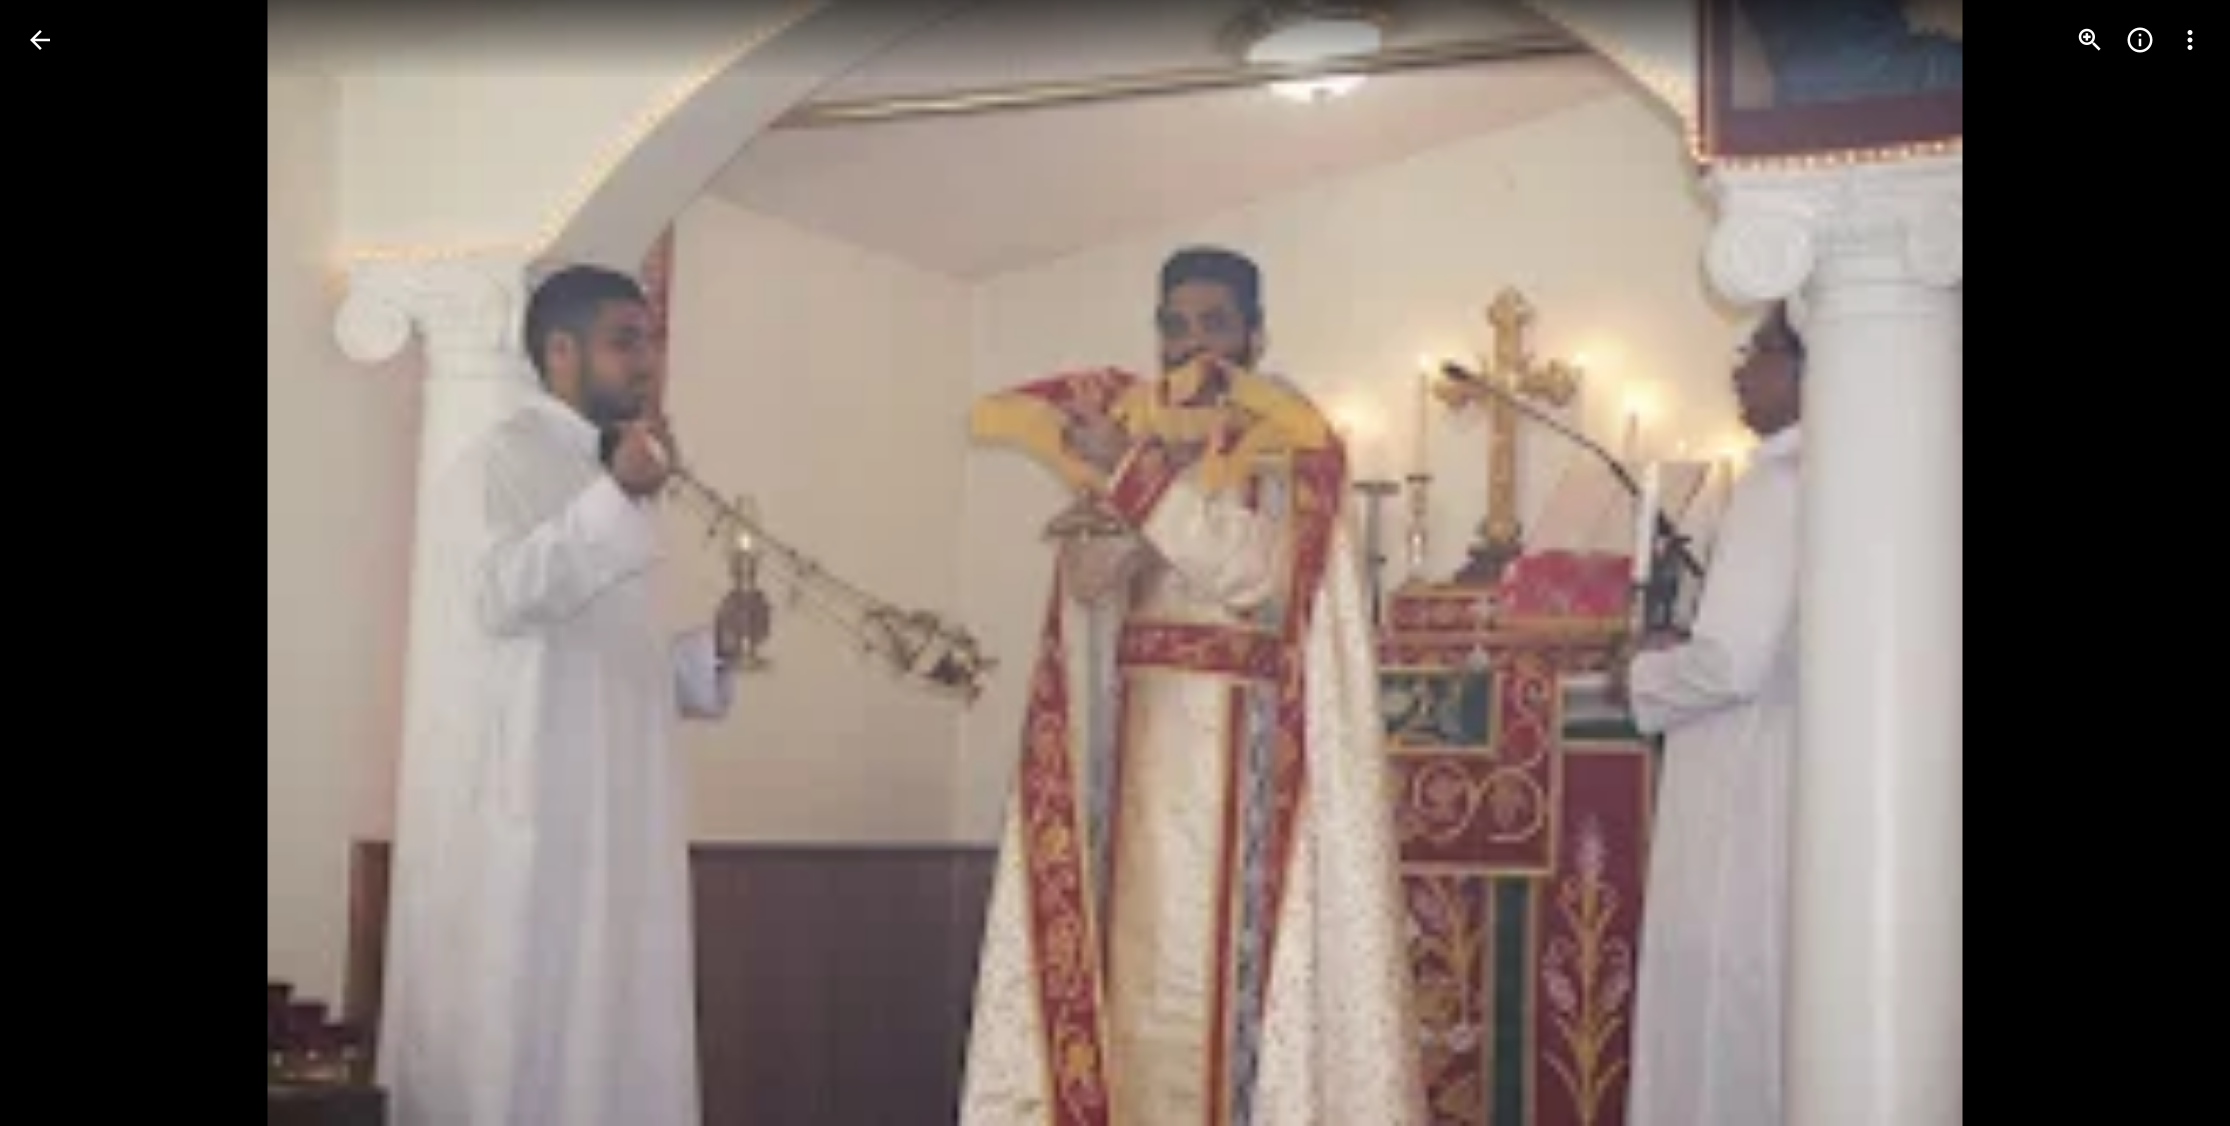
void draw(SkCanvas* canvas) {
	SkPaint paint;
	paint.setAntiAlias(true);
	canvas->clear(0xff000000);
	canvas->drawImageRect(SkImages::DeferredFromEncodedData(SkData::MakeFromFileName("img5.png")), SkRect::MakeXYWH(267, 0, 1696, 1126), SkSamplingOptions());
	{
		const SkColor colors[] = {0x99000000, 0x00000000};
		const float stops[] = {0, 1};
		const SkPoint ends[] = {{1115, 0}, {1115, 80}};
		paint.setShader(SkGradientShader::MakeLinear(ends, colors, stops, 2, SkTileMode::kClamp));
		paint.setAlpha(255);
	}
	canvas->drawRect(SkRect::MakeXYWH(267, 0, 1696, 77), paint);
	canvas->drawImageRect(SkImages::DeferredFromEncodedData(SkData::MakeFromFileName("img1.png")), SkRect::MakeXYWH(30, 30, 20, 20), SkSamplingOptions());
	canvas->drawImageRect(SkImages::DeferredFromEncodedData(SkData::MakeFromFileName("img2.png")), SkRect::MakeXYWH(2078, 28, 23, 23), SkSamplingOptions());
	canvas->drawImageRect(SkImages::DeferredFromEncodedData(SkData::MakeFromFileName("img3.png")), SkRect::MakeXYWH(2127, 27, 26, 26), SkSamplingOptions());
	canvas->drawImageRect(SkImages::DeferredFromEncodedData(SkData::MakeFromFileName("img4.png")), SkRect::MakeXYWH(2187, 30, 6, 20), SkSamplingOptions());
}
